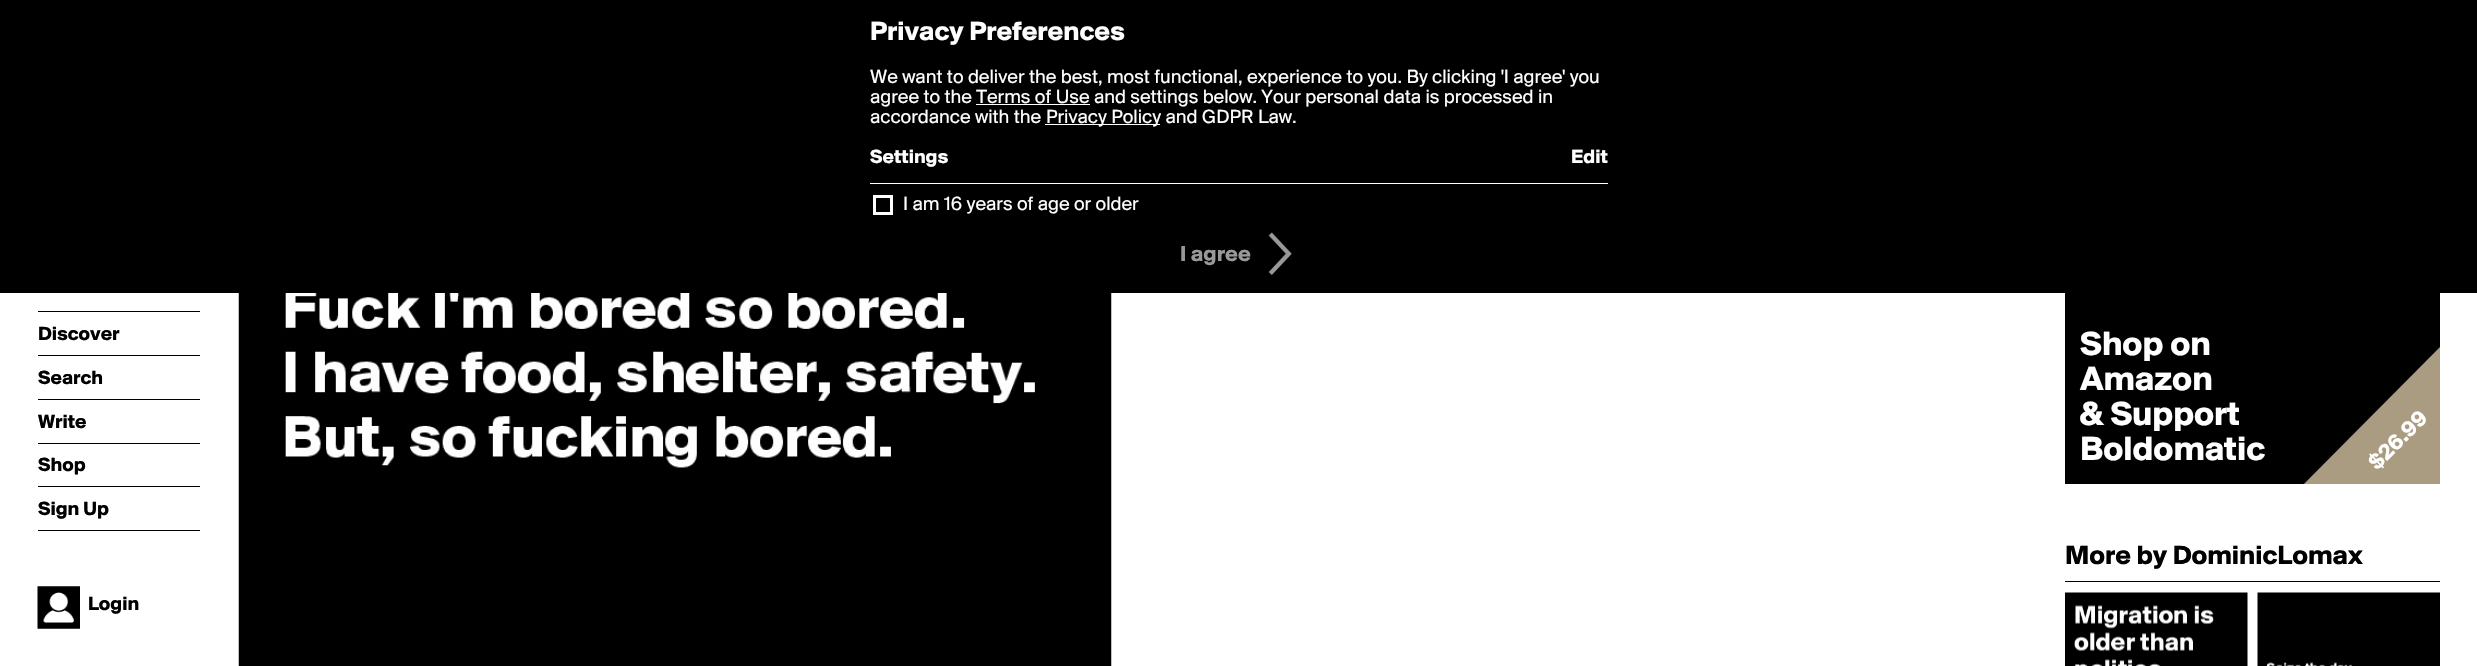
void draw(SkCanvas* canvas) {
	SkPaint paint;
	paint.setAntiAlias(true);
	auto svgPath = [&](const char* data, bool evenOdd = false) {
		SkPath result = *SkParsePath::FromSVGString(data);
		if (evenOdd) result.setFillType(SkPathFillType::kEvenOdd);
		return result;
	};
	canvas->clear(0xffffffff);
	paint.setColor(0xff000000);
	canvas->drawRect(SkRect::MakeXYWH(0, 0, 2477, 293), paint);
	SkFont f1(fontMgr->matchFamilyStyle("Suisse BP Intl", SkFontStyle::Bold()), 27.5);
	f1.setSubpixel(true);
	paint.setColor(0xffffffff);
	canvas->drawString("Privacy Preferences", 870, 40, f1, paint);
	SkFont f2(fontMgr->matchFamilyStyle("Suisse BP Intl", SkFontStyle::Normal()), 20);
	f2.setSubpixel(true);
	canvas->drawString("We want to deliver the best, most functional, experience to you. By clicking 'I agree' you", 870, 83, f2, paint);
	canvas->drawString("agree to the Terms of Use and settings below. Your personal data is processed in", 870, 103, f2, paint);
	canvas->drawRect(SkRect::MakeXYWH(976, 104, 114, 1), paint);
	canvas->drawString("accordance with the", 870, 123, f2, paint);
	canvas->drawRect(SkRect::MakeXYWH(1045, 124, 115, 1), paint);
	canvas->drawString("Privacy Policy and GDPR Law.", 1046, 123, f2, paint);
	SkFont f3(fontMgr->matchFamilyStyle("Suisse BP Intl", SkFontStyle::Bold()), 20);
	f3.setSubpixel(true);
	canvas->drawString("Settings", 870, 163, f3, paint);
	canvas->drawString("Edit", 1571, 163, f3, paint);
	canvas->drawRect(SkRect::MakeXYWH(870, 183, 738, 1), paint);
	paint.setStroke(true);
	paint.setStrokeWidth(3);
	canvas->drawRect(SkRect::MakeXYWH(874.5, 196.5, 17, 17), paint);
	paint.setStroke(false);
	canvas->drawString("I am 16 years of age or older", 903, 210, f2, paint);
	SkFont f4(fontMgr->matchFamilyStyle("Suisse BP Intl", SkFontStyle::Bold()), 22.5);
	f4.setSubpixel(true);
	paint.setColor(0xff999999);
	canvas->drawString("I agree", 1180, 261, f4, paint);
	canvas->drawImageRect(SkImages::DeferredFromEncodedData(SkData::MakeFromFileName("img1.png")), SkRect::MakeXYWH(1268, 232, 24, 43), SkSamplingOptions());
	paint.setColor(0xff000000);
	canvas->drawRect(SkRect::MakeXYWH(38, 311, 162, 1), paint);
	canvas->drawRect(SkRect::MakeXYWH(38, 355, 162, 1), paint);
	canvas->drawString("Discover", 38, 340, f3, paint);
	canvas->drawRect(SkRect::MakeXYWH(38, 399, 162, 1), paint);
	canvas->drawString("Search", 38, 384, f3, paint);
	canvas->drawRect(SkRect::MakeXYWH(38, 443, 162, 1), paint);
	canvas->drawString("Write", 38, 428, f3, paint);
	canvas->drawRect(SkRect::MakeXYWH(38, 486, 162, 1), paint);
	canvas->drawString("Shop", 38, 471, f3, paint);
	canvas->drawRect(SkRect::MakeXYWH(38, 530, 162, 1), paint);
	canvas->drawString("Sign Up", 38, 515, f3, paint);
	canvas->drawImageRect(SkImages::DeferredFromEncodedData(SkData::MakeFromFileName("img2.png")), SkRect::MakeXYWH(37, 586, 43, 43), SkSamplingOptions());
	canvas->drawString("Login", 88, 610, f3, paint);
	canvas->drawImageRect(SkImages::DeferredFromEncodedData(SkData::MakeFromFileName("img3.png")), SkRect::MakeXYWH(238, 293, 874, 373), SkSamplingOptions());
	canvas->drawRect(SkRect::MakeXYWH(2065, 293, 375, 191), paint);
	SkFont f5(fontMgr->matchFamilyStyle("Suisse BP Intl", SkFontStyle::Bold()), 35);
	f5.setSubpixel(true);
	paint.setColor(0xffffffff);
	canvas->drawString("Shop on", 2080, 355, f5, paint);
	canvas->drawString("Amazon", 2080, 390, f5, paint);
	canvas->drawString("& Support", 2080, 425, f5, paint);
	canvas->drawString("Boldomatic", 2080, 460, f5, paint);
	canvas->save();
	canvas->clipRect(SkRect::MakeXYWH(2065, 109, 375, 375));
	paint.setColor(0xffaa9c81);
	canvas->drawPath(svgPath("M2286 502L2460 327L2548 416L2374 590Z"), paint);
	canvas->restore();
	paint.setColor(0xffffffff);
	canvas->save();
	canvas->rotate(-45, 2377, 471);
	canvas->drawString("$26.99", 2377, 471, f4, paint);
	canvas->restore();
	paint.setColor(0xff000000);
	canvas->drawRect(SkRect::MakeXYWH(2065, 581, 375, 1), paint);
	canvas->drawString("More by DominicLomax", 2065, 564, f1, paint);
	canvas->drawImageRect(SkImages::DeferredFromEncodedData(SkData::MakeFromFileName("img4.png")), SkRect::MakeXYWH(2065, 592, 183, 74), SkSamplingOptions());
	canvas->drawImageRect(SkImages::DeferredFromEncodedData(SkData::MakeFromFileName("img5.png")), SkRect::MakeXYWH(2257, 592, 183, 74), SkSamplingOptions());
}
